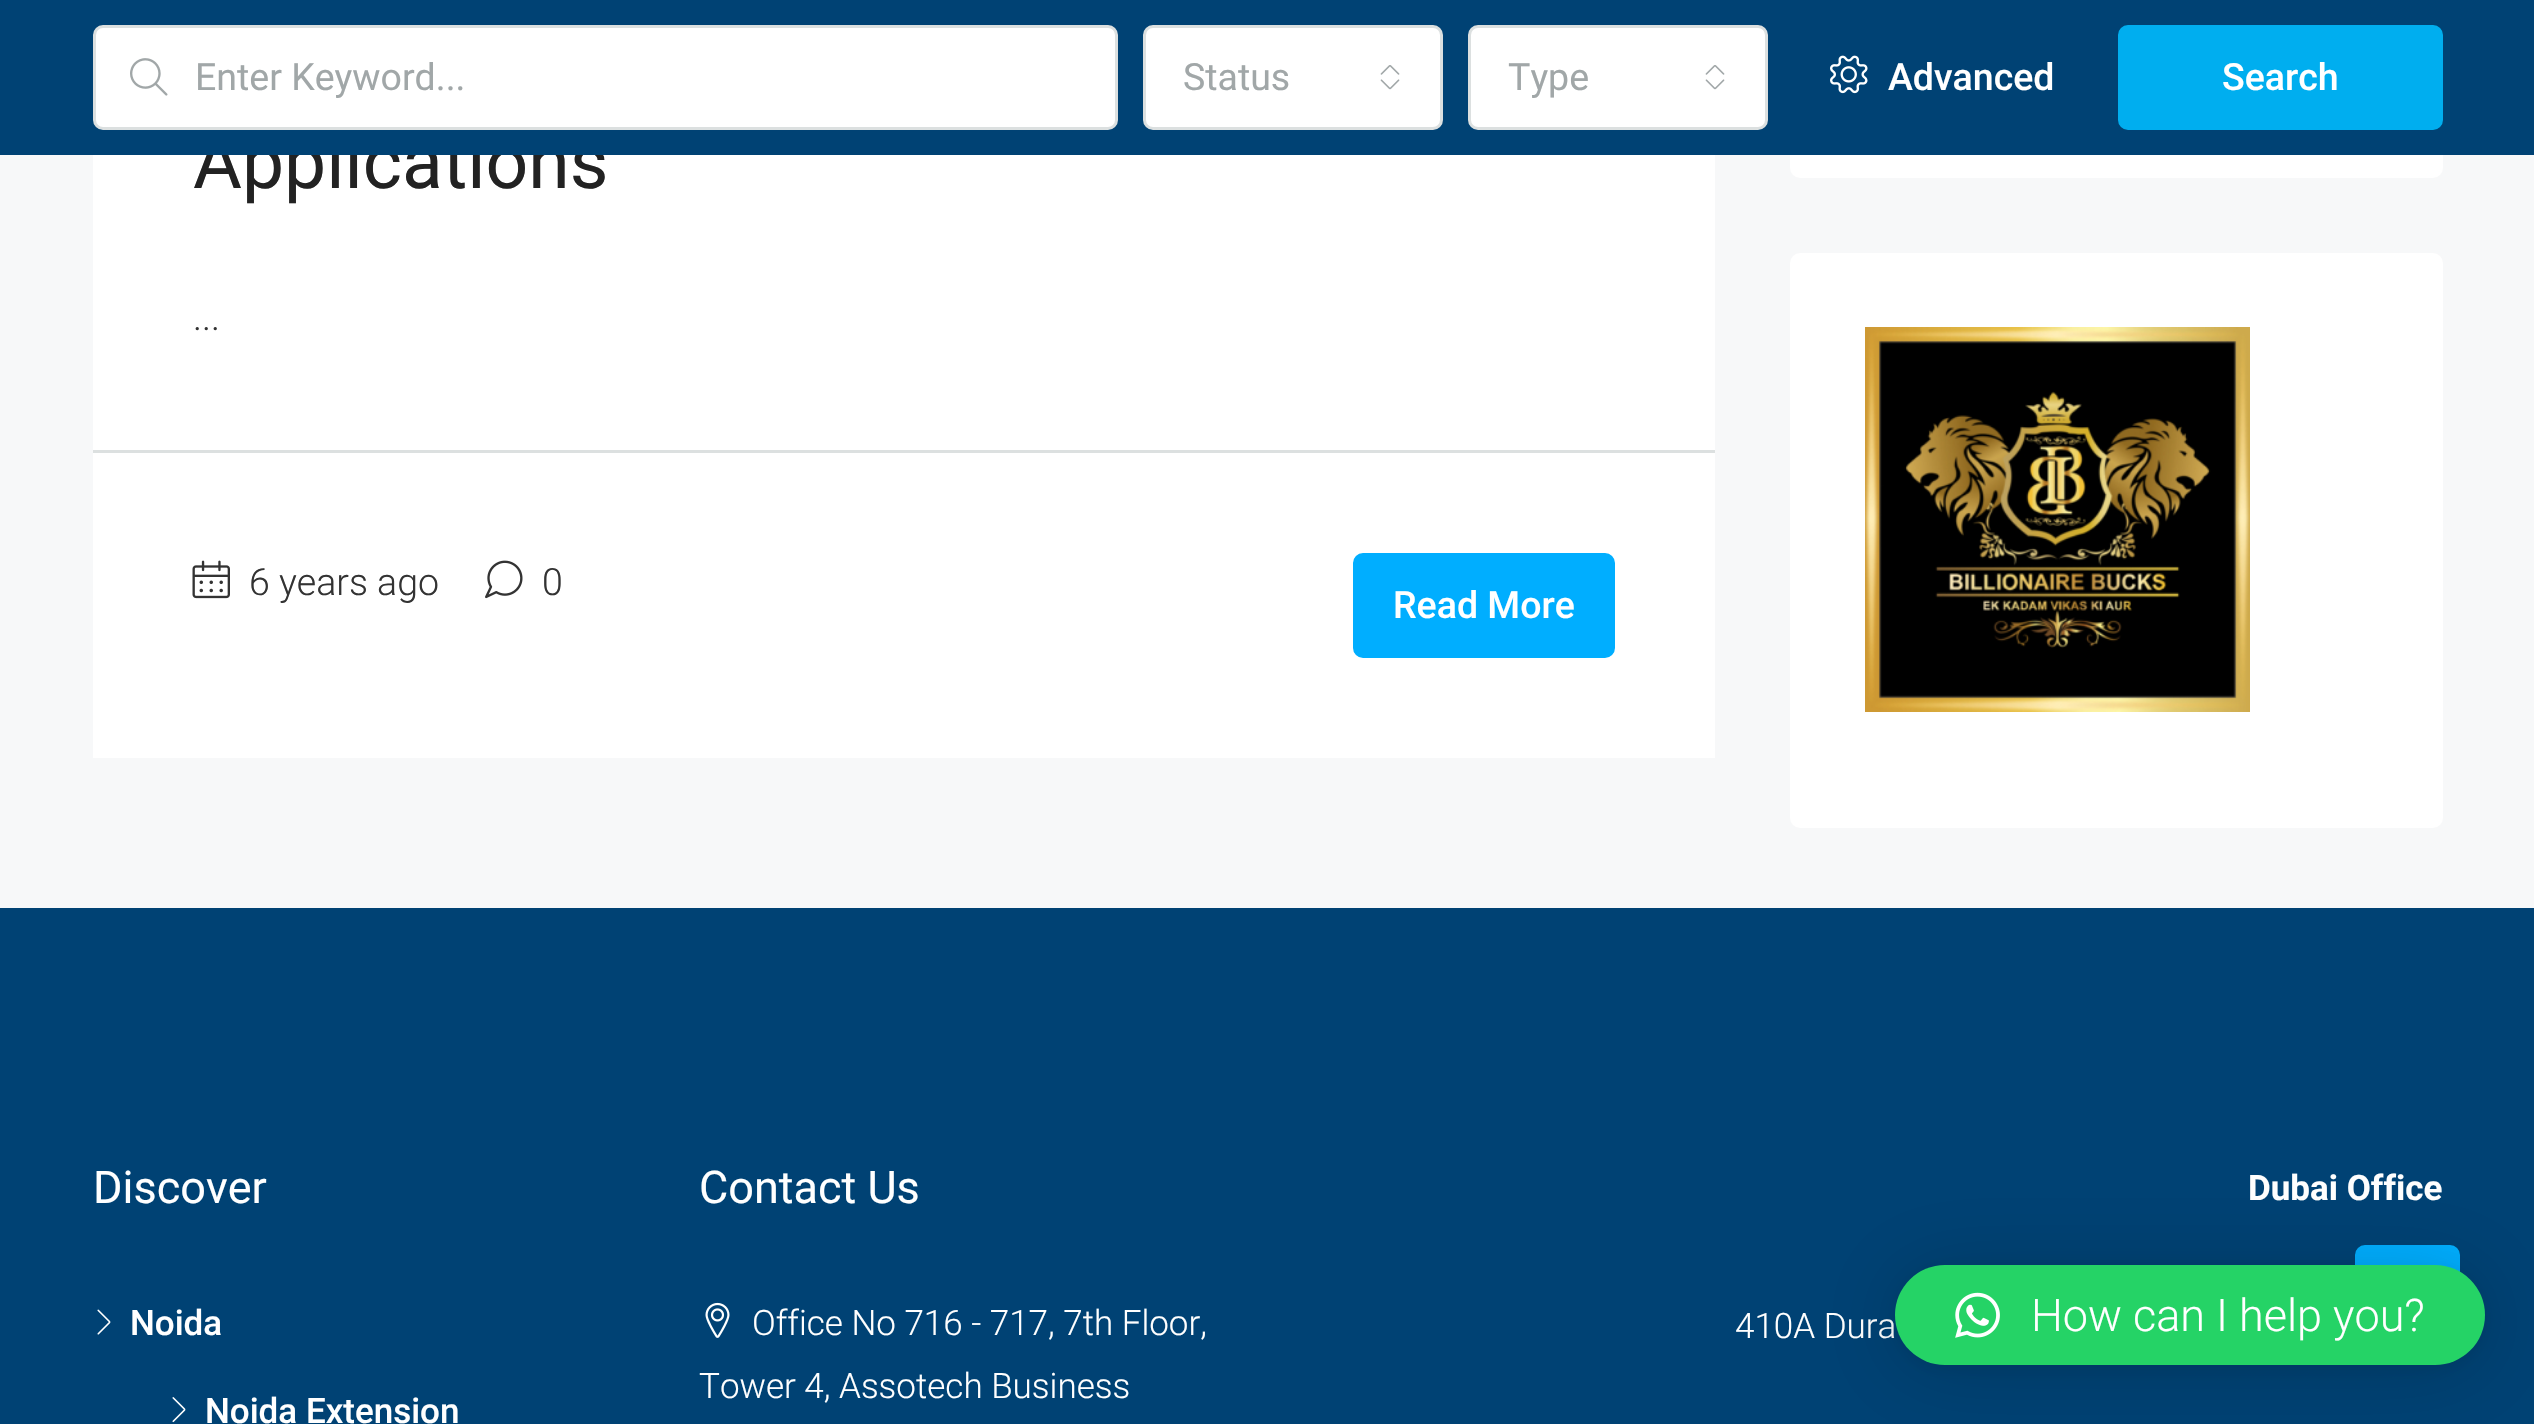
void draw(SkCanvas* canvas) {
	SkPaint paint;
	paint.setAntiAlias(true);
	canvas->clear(0xfff7f8f9);
	paint.setColor(0xffffffff);
	canvas->drawRect(SkRect::MakeXYWH(93, 155, 1622, 603), paint);
	SkFont f1(fontMgr->matchFamilyStyle("Roboto", SkFontStyle::Normal()), 75);
	f1.setSubpixel(true);
	paint.setColor(0xff222222);
	canvas->drawString("Applications", 193, 188, f1, paint);
	paint.setColor(0xffffffff);
	canvas->drawRoundRect(SkRect::MakeXYWH(1790, -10, 653, 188), 10, 10, paint);
	paint.setColor(0xff004274);
	canvas->drawRect(SkRect::MakeXYWH(0, 0, 2534, 155), paint);
	paint.setColor(0xffffffff);
	canvas->drawRoundRect(SkRect::MakeXYWH(94.5, 26.5, 1022, 102), 8.5, 8.5, paint);
	paint.setStroke(true);
	paint.setStrokeWidth(3);
	paint.setColor(0xffdce0e0);
	canvas->drawRoundRect(SkRect::MakeXYWH(94.5, 26.5, 1022, 102), 8.5, 8.5, paint);
	canvas->drawImageRect(SkImages::DeferredFromEncodedData(SkData::MakeFromFileName("img1.png")), SkRect::MakeXYWH(130, 58, 38, 38), SkSamplingOptions());
	SkFont f2(fontMgr->matchFamilyStyle("Roboto", SkFontStyle::Normal()), 37.5);
	f2.setSubpixel(true);
	paint.setStroke(false);
	paint.setColor(0xffa1a7a8);
	canvas->drawString("Enter Keyword...", 195, 90, f2, paint);
	paint.setColor(0xffffffff);
	canvas->drawRoundRect(SkRect::MakeXYWH(1144.5, 26.5, 297, 102), 8.5, 8.5, paint);
	paint.setStroke(true);
	paint.setColor(0xffdce0e0);
	canvas->drawRoundRect(SkRect::MakeXYWH(1144.5, 26.5, 297, 102), 8.5, 8.5, paint);
	paint.setStroke(false);
	paint.setColor(0xffa1a7a8);
	canvas->drawString("Status", 1183, 90, f2, paint);
	canvas->drawImageRect(SkImages::DeferredFromEncodedData(SkData::MakeFromFileName("img2.png")), SkRect::MakeXYWH(1380, 65, 20, 25), SkSamplingOptions());
	paint.setColor(0xffffffff);
	canvas->drawRoundRect(SkRect::MakeXYWH(1469.5, 26.5, 297, 102), 8.5, 8.5, paint);
	paint.setStroke(true);
	paint.setColor(0xffdce0e0);
	canvas->drawRoundRect(SkRect::MakeXYWH(1469.5, 26.5, 297, 102), 8.5, 8.5, paint);
	paint.setStroke(false);
	paint.setColor(0xffa1a7a8);
	canvas->drawString("Type", 1508, 90, f2, paint);
	canvas->drawImageRect(SkImages::DeferredFromEncodedData(SkData::MakeFromFileName("img2.png")), SkRect::MakeXYWH(1705, 65, 20, 25), SkSamplingOptions());
	canvas->drawImageRect(SkImages::DeferredFromEncodedData(SkData::MakeFromFileName("img3.png")), SkRect::MakeXYWH(1830, 55, 38, 39), SkSamplingOptions());
	SkFont f3(fontMgr->matchFamilyStyle("Roboto", SkFontStyle(500, SkFontStyle::kNormal_Width, SkFontStyle::kUpright_Slant)), 37.5);
	f3.setSubpixel(true);
	paint.setColor(0xffffffff);
	canvas->drawString("Advanced", 1888, 90, f3, paint);
	paint.setColor(0xff00aeef);
	canvas->drawRoundRect(SkRect::MakeXYWH(2119.5, 26.5, 322, 102), 8.5, 8.5, paint);
	paint.setStroke(true);
	canvas->drawRoundRect(SkRect::MakeXYWH(2119.5, 26.5, 322, 102), 8.5, 8.5, paint);
	paint.setStroke(false);
	paint.setColor(0xffffffff);
	canvas->drawString("Search", 2222, 90, f3, paint);
	SkFont f4(fontMgr->matchFamilyStyle("Roboto", SkFontStyle(300, SkFontStyle::kNormal_Width, SkFontStyle::kUpright_Slant)), 37.5);
	f4.setSubpixel(true);
	paint.setColor(0xff333333);
	canvas->drawString("...", 193, 330, f4, paint);
	paint.setColor(0xffdce0e0);
	canvas->drawRect(SkRect::MakeXYWH(93, 450, 1622, 3), paint);
	canvas->drawImageRect(SkImages::DeferredFromEncodedData(SkData::MakeFromFileName("img4.png")), SkRect::MakeXYWH(192, 560, 38, 39), SkSamplingOptions());
	paint.setColor(0xff333333);
	canvas->drawString("6 years ago", 249, 595, f4, paint);
	canvas->drawImageRect(SkImages::DeferredFromEncodedData(SkData::MakeFromFileName("img5.png")), SkRect::MakeXYWH(485, 560, 38, 39), SkSamplingOptions());
	canvas->drawString("0", 542, 595, f4, paint);
	paint.setColor(0xff00aeff);
	canvas->drawRoundRect(SkRect::MakeXYWH(1354.5, 554.5, 259, 102), 8.5, 8.5, paint);
	paint.setStroke(true);
	canvas->drawRoundRect(SkRect::MakeXYWH(1354.5, 554.5, 259, 102), 8.5, 8.5, paint);
	paint.setStroke(false);
	paint.setColor(0xffffffff);
	canvas->drawString("Read More", 1393, 618, f3, paint);
	canvas->drawRoundRect(SkRect::MakeXYWH(1790, 253, 653, 575), 10, 10, paint);
	canvas->drawImageRect(SkImages::DeferredFromEncodedData(SkData::MakeFromFileName("img6.png")), SkRect::MakeXYWH(1865, 327, 385, 385), SkSamplingOptions());
	paint.setColor(0xff004274);
	canvas->drawRect(SkRect::MakeXYWH(0, 908, 2534, 516), paint);
	SkFont f5(fontMgr->matchFamilyStyle("Roboto", SkFontStyle::Normal()), 45);
	f5.setSubpixel(true);
	paint.setColor(0xffffffff);
	canvas->drawString("Discover", 93, 1203, f5, paint);
	canvas->drawImageRect(SkImages::DeferredFromEncodedData(SkData::MakeFromFileName("img7.png")), SkRect::MakeXYWH(97, 1309, 14, 26), SkSamplingOptions());
	SkFont f6(fontMgr->matchFamilyStyle("Roboto", SkFontStyle(500, SkFontStyle::kNormal_Width, SkFontStyle::kUpright_Slant)), 35);
	f6.setSubpixel(true);
	canvas->drawString("Noida", 130, 1335, f6, paint);
	canvas->drawImageRect(SkImages::DeferredFromEncodedData(SkData::MakeFromFileName("img8.png")), SkRect::MakeXYWH(172, 1397, 14, 26), SkSamplingOptions());
	canvas->drawString("Noida Extension", 205, 1423, f6, paint);
	canvas->drawString("Contact Us", 699, 1203, f5, paint);
	canvas->drawImageRect(SkImages::DeferredFromEncodedData(SkData::MakeFromFileName("img9.png")), SkRect::MakeXYWH(705, 1302, 25, 36), SkSamplingOptions());
	SkFont f7(fontMgr->matchFamilyStyle("Roboto", SkFontStyle(300, SkFontStyle::kNormal_Width, SkFontStyle::kUpright_Slant)), 35);
	f7.setSubpixel(true);
	canvas->drawString("Office No 716 - 717, 7th Floor,", 752, 1335, f7, paint);
	canvas->drawString("Tower 4, Assotech Business", 699, 1398, f7, paint);
	SkFont f8(fontMgr->matchFamilyStyle("Roboto", SkFontStyle::Bold()), 35);
	f8.setSubpixel(true);
	canvas->drawString("Dubai Office", 2248, 1200, f8, paint);
	canvas->drawString("410A Dura", 1735, 1338, f7, paint);
	paint.setColor(0xff00aeff);
	canvas->drawRoundRect(SkRect::MakeXYWH(2356.5, 1246.5, 102, 102), 8.5, 8.5, paint);
	paint.setStroke(true);
	canvas->drawRoundRect(SkRect::MakeXYWH(2356.5, 1246.5, 102, 102), 8.5, 8.5, paint);
	paint.setStroke(false);
	paint.setColor(0x29000000);
	paint.setMaskFilter(SkMaskFilter::MakeBlur(kNormal_SkBlurStyle, 40));
	canvas->drawRoundRect(SkRect::MakeXYWH(1895, 1270, 590, 100), 50, 50, paint);
	paint.setMaskFilter(nullptr);
	paint.setColor(0x0f000000);
	paint.setMaskFilter(SkMaskFilter::MakeBlur(kNormal_SkBlurStyle, 7.5));
	canvas->drawRoundRect(SkRect::MakeXYWH(1895, 1268, 590, 100), 50, 50, paint);
	paint.setMaskFilter(nullptr);
	paint.setColor(0xff25d366);
	canvas->drawRoundRect(SkRect::MakeXYWH(1895, 1265, 590, 100), 50, 50, paint);
	canvas->drawImageRect(SkImages::DeferredFromEncodedData(SkData::MakeFromFileName("img10.png")), SkRect::MakeXYWH(1955, 1292, 45, 46), SkSamplingOptions());
	SkFont f9(fontMgr->matchFamilyStyle("Roboto", SkFontStyle(300, SkFontStyle::kNormal_Width, SkFontStyle::kUpright_Slant)), 45);
	f9.setSubpixel(true);
	paint.setColor(0xffffffff);
	canvas->drawString("How can I help you?", 2031, 1331, f9, paint);
}
